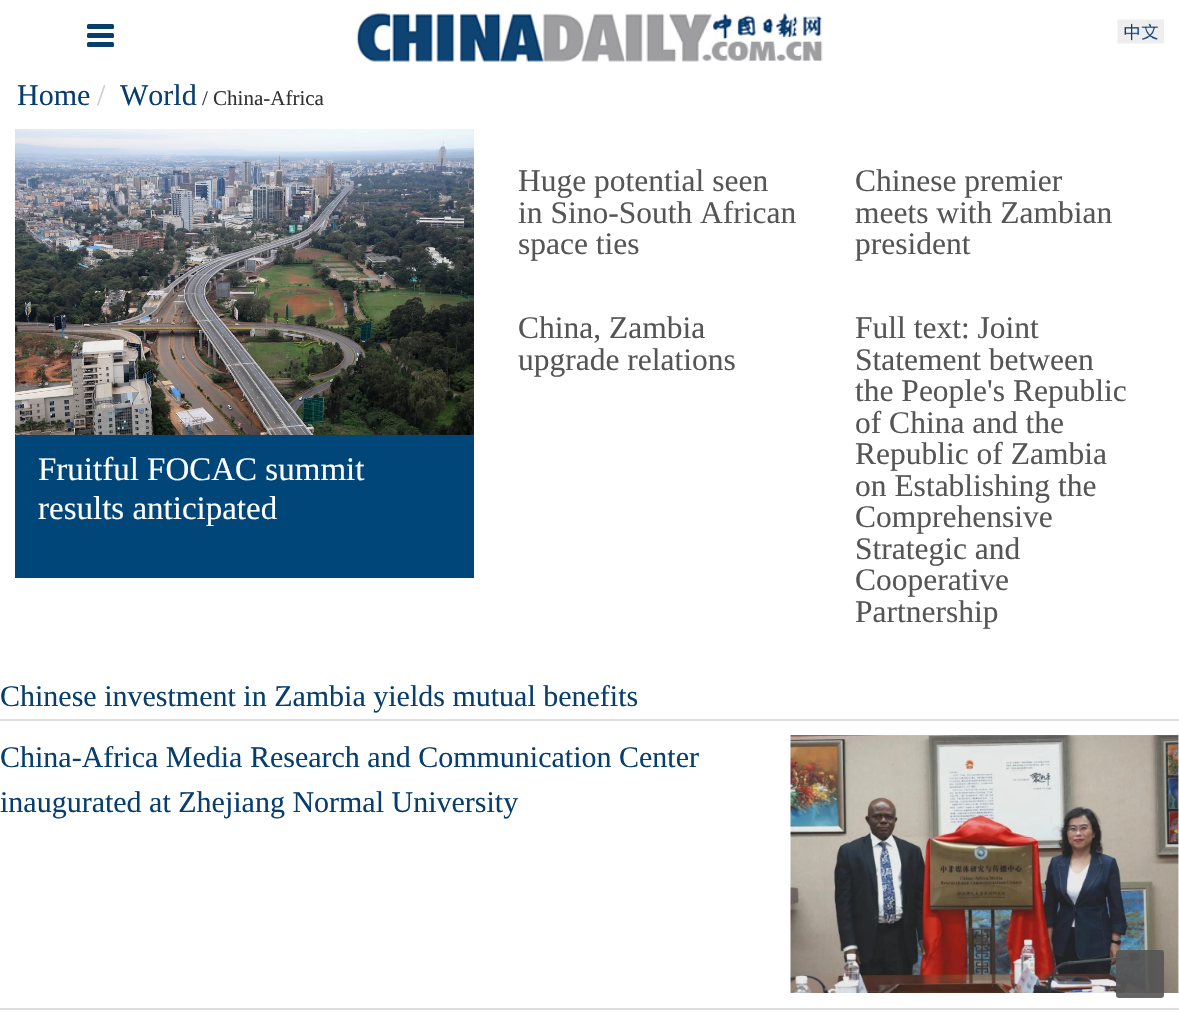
void draw(SkCanvas* canvas) {
	SkPaint paint;
	paint.setAntiAlias(true);
	canvas->clear(0xffffffff);
	paint.setColor(0xff073e6e);
	canvas->drawRoundRect(SkRect::MakeXYWH(87, 24, 27, 5), 1.5, 1.5, paint);
	canvas->drawRoundRect(SkRect::MakeXYWH(87, 33, 27, 5), 1.5, 1.5, paint);
	canvas->drawRoundRect(SkRect::MakeXYWH(87, 42, 27, 5), 1.5, 1.5, paint);
	canvas->drawImageRect(SkImages::DeferredFromEncodedData(SkData::MakeFromFileName("img1.png")), SkRect::MakeXYWH(356, 12, 467, 50), SkSamplingOptions());
	canvas->drawImageRect(SkImages::DeferredFromEncodedData(SkData::MakeFromFileName("img2.png")), SkRect::MakeXYWH(1117, 19, 47, 25), SkSamplingOptions());
	SkFont f1(fontMgr->matchFamilyStyle("Liberation Serif", SkFontStyle::Normal()), 30);
	f1.setSubpixel(true);
	canvas->drawString("Home", 17, 105, f1, paint);
	paint.setColor(0xffcccccc);
	canvas->drawString("/", 97, 105, f1, paint);
	paint.setColor(0xff073e6e);
	canvas->drawString("World", 120, 105, f1, paint);
	SkFont f2(fontMgr->matchFamilyStyle("Liberation Serif", SkFontStyle::Normal()), 21);
	f2.setSubpixel(true);
	paint.setColor(0xff333333);
	canvas->drawString("/ China-Africa", 202, 105, f2, paint);
	canvas->drawImageRect(SkImages::DeferredFromEncodedData(SkData::MakeFromFileName("img3.png")), SkRect::MakeXYWH(15, 129, 459, 306), SkSamplingOptions());
	paint.setColor(0xff004679);
	canvas->drawRect(SkRect::MakeXYWH(15, 435, 459, 143), paint);
	SkFont f3(fontMgr->matchFamilyStyle("Liberation Serif", SkFontStyle::Normal()), 33);
	f3.setSubpixel(true);
	paint.setColor(0xffffffff);
	canvas->drawString("Fruitful FOCAC summit", 38, 480, f3, paint);
	canvas->drawString("results anticipated", 38, 519, f3, paint);
	SkFont f4(fontMgr->matchFamilyStyle("Liberation Serif", SkFontStyle::Normal()), 31.5);
	f4.setSubpixel(true);
	paint.setColor(0xff555555);
	canvas->drawString("Huge potential seen", 518, 191, f4, paint);
	canvas->drawString("in Sino-South African", 518, 223, f4, paint);
	canvas->drawString("space ties", 518, 254, f4, paint);
	canvas->drawString("Chinese premier", 855, 191, f4, paint);
	canvas->drawString("meets with Zambian", 855, 223, f4, paint);
	canvas->drawString("president", 855, 254, f4, paint);
	canvas->drawString("China, Zambia", 518, 338, f4, paint);
	canvas->drawString("upgrade relations", 518, 370, f4, paint);
	canvas->drawString("Full text: Joint", 855, 338, f4, paint);
	canvas->drawString("Statement between", 855, 370, f4, paint);
	canvas->drawString("the People's Republic", 855, 401, f4, paint);
	canvas->drawString("of China and the", 855, 433, f4, paint);
	canvas->drawString("Republic of Zambia", 855, 464, f4, paint);
	canvas->drawString("on Establishing the", 855, 496, f4, paint);
	canvas->drawString("Comprehensive", 855, 527, f4, paint);
	canvas->drawString("Strategic and", 855, 559, f4, paint);
	canvas->drawString("Cooperative", 855, 590, f4, paint);
	canvas->drawString("Partnership", 855, 622, f4, paint);
	paint.setColor(0xffdedede);
	canvas->drawRect(SkRect::MakeXYWH(0, 719, 1179, 2), paint);
	paint.setColor(0xff073e6e);
	canvas->drawString("Chinese investment in Zambia yields mutual benefits", 0, 706, f1, paint);
	paint.setColor(0xffdedede);
	canvas->drawRect(SkRect::MakeXYWH(0, 1008, 1179, 2), paint);
	paint.setColor(0xff073e6e);
	canvas->drawString("China-Africa Media Research and Communication Center", 0, 767, f1, paint);
	canvas->drawString("inaugurated at Zhejiang Normal University", 0, 812, f1, paint);
	canvas->drawImageRect(SkImages::DeferredFromEncodedData(SkData::MakeFromFileName("img4.png")), SkRect::MakeXYWH(790, 735, 389, 258), SkSamplingOptions());
	paint.setColor(0xe6555555);
	canvas->drawRoundRect(SkRect::MakeXYWH(1116, 950, 48, 48), 3, 3, paint);
}
